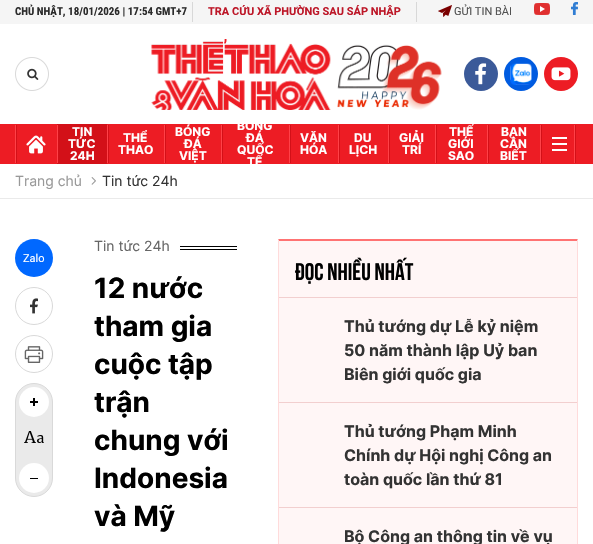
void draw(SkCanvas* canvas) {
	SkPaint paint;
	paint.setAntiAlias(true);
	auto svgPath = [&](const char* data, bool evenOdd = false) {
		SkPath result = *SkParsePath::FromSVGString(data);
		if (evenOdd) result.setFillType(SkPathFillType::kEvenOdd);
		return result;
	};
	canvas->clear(0xffffffff);
	paint.setColor(0xfff5f5f5);
	canvas->drawRect(SkRect::MakeXYWH(0, 0, 593, 24), paint);
	SkFont f1(fontMgr->matchFamilyStyle("Roboto Condensed", SkFontStyle::Bold()), 11);
	f1.setSubpixel(true);
	paint.setColor(0xff2b2b2b);
	canvas->drawString("CHỦ NHẬT, 18/01/2026 | 17:54 GMT+7", 15, 15, f1, paint);
	paint.setColor(0xffd8d8d8);
	canvas->drawRect(SkRect::MakeXYWH(416, 2, 1, 20), paint);
	canvas->drawRect(SkRect::MakeXYWH(192, 2, 1, 20), paint);
	SkFont f2(fontMgr->matchFamilyStyle("Roboto", SkFontStyle::Bold()), 11);
	f2.setSubpixel(true);
	paint.setColor(0xffbd1728);
	canvas->drawString("TRA CỨU XÃ PHƯỜNG SAU SÁP NHẬP", 208, 15, f2, paint);
	canvas->drawImageRect(SkImages::DeferredFromEncodedData(SkData::MakeFromFileName("img1.png")), SkRect::MakeXYWH(438, 5, 14, 12), SkSamplingOptions());
	SkFont f3(fontMgr->matchFamilyStyle("Roboto", SkFontStyle::Normal()), 11);
	f3.setSubpixel(true);
	paint.setColor(0xff525252);
	canvas->drawString("GỬI TIN BÀI", 454, 15, f3, paint);
	canvas->drawImageRect(SkImages::DeferredFromEncodedData(SkData::MakeFromFileName("img2.png")), SkRect::MakeXYWH(534, 3, 16, 12), SkSamplingOptions());
	canvas->drawImageRect(SkImages::DeferredFromEncodedData(SkData::MakeFromFileName("img3.png")), SkRect::MakeXYWH(571, 2, 7, 13), SkSamplingOptions());
	canvas->drawImageRect(SkImages::DeferredFromEncodedData(SkData::MakeFromFileName("img4.png")), SkRect::MakeXYWH(15, 57, 34, 34), SkSamplingOptions());
	canvas->drawImageRect(SkImages::DeferredFromEncodedData(SkData::MakeFromFileName("img5.png")), SkRect::MakeXYWH(151, 39, 291, 71), SkSamplingOptions());
	paint.setColor(0xff3b5a99);
	canvas->drawCircle(481, 74, 17, paint);
	canvas->drawImageRect(SkImages::DeferredFromEncodedData(SkData::MakeFromFileName("img6.png")), SkRect::MakeXYWH(475, 63, 12, 22), SkSamplingOptions());
	paint.setColor(0xff005be0);
	canvas->drawCircle(521, 74, 17, paint);
	canvas->drawImageRect(SkImages::DeferredFromEncodedData(SkData::MakeFromFileName("img7.png")), SkRect::MakeXYWH(510, 63, 22, 22), SkSamplingOptions());
	paint.setColor(0xffed1c24);
	canvas->drawCircle(561, 74, 17, paint);
	canvas->drawImageRect(SkImages::DeferredFromEncodedData(SkData::MakeFromFileName("img8.png")), SkRect::MakeXYWH(551, 67, 20, 14), SkSamplingOptions());
	canvas->drawRect(SkRect::MakeXYWH(0, 124, 593, 40), paint);
	paint.setColor(0xffff4148);
	canvas->drawRect(SkRect::MakeXYWH(15, 125, 1, 38), paint);
	paint.setColor(0xffd31018);
	canvas->drawRect(SkRect::MakeXYWH(16, 125, 1, 38), paint);
	canvas->drawImageRect(SkImages::DeferredFromEncodedData(SkData::MakeFromFileName("img9.png")), SkRect::MakeXYWH(26, 135, 20, 19), SkSamplingOptions());
	canvas->drawRect(SkRect::MakeXYWH(57, 124, 50, 40), paint);
	paint.setColor(0xffff4148);
	canvas->drawRect(SkRect::MakeXYWH(57, 125, 1, 38), paint);
	SkFont f4(fontMgr->matchFamilyStyle("Inter", SkFontStyle::Bold()), 12);
	f4.setSubpixel(true);
	paint.setColor(0xffffffff);
	canvas->drawString("TIN", 72, 136, f4, paint);
	canvas->drawString("TỨC", 68, 148, f4, paint);
	canvas->drawString("24H", 70, 160, f4, paint);
	paint.setColor(0xffff4148);
	canvas->drawRect(SkRect::MakeXYWH(107, 125, 1, 38), paint);
	paint.setColor(0xffd31018);
	canvas->drawRect(SkRect::MakeXYWH(108, 125, 1, 38), paint);
	paint.setColor(0xffffffff);
	canvas->drawString("THỂ", 123, 142, f4, paint);
	canvas->drawString("THAO", 118, 154, f4, paint);
	paint.setColor(0xffff4148);
	canvas->drawRect(SkRect::MakeXYWH(164, 125, 1, 38), paint);
	paint.setColor(0xffd31018);
	canvas->drawRect(SkRect::MakeXYWH(165, 125, 1, 38), paint);
	paint.setColor(0xffffffff);
	canvas->drawString("BÓNG", 175, 136, f4, paint);
	canvas->drawString("ĐÁ", 184, 148, f4, paint);
	canvas->drawString("VIỆT", 179, 160, f4, paint);
	paint.setColor(0xffff4148);
	canvas->drawRect(SkRect::MakeXYWH(221, 125, 1, 38), paint);
	paint.setColor(0xffd31018);
	canvas->drawRect(SkRect::MakeXYWH(222, 125, 1, 38), paint);
	paint.setColor(0xffffffff);
	canvas->drawString("BÓNG", 237, 130, f4, paint);
	canvas->drawString("ĐÁ", 246, 142, f4, paint);
	canvas->drawString("QUỐC", 237, 154, f4, paint);
	canvas->drawString("TẾ", 247, 166, f4, paint);
	paint.setColor(0xffff4148);
	canvas->drawRect(SkRect::MakeXYWH(289, 125, 1, 38), paint);
	paint.setColor(0xffd31018);
	canvas->drawRect(SkRect::MakeXYWH(290, 125, 1, 38), paint);
	paint.setColor(0xffffffff);
	canvas->drawString("VĂN", 300, 142, f4, paint);
	canvas->drawString("HÓA", 300, 154, f4, paint);
	paint.setColor(0xffff4148);
	canvas->drawRect(SkRect::MakeXYWH(338, 125, 1, 38), paint);
	paint.setColor(0xffd31018);
	canvas->drawRect(SkRect::MakeXYWH(339, 125, 1, 38), paint);
	paint.setColor(0xffffffff);
	canvas->drawString("DU", 354, 142, f4, paint);
	canvas->drawString("LỊCH", 349, 154, f4, paint);
	paint.setColor(0xffff4148);
	canvas->drawRect(SkRect::MakeXYWH(388, 125, 1, 38), paint);
	paint.setColor(0xffd31018);
	canvas->drawRect(SkRect::MakeXYWH(389, 125, 1, 38), paint);
	paint.setColor(0xffffffff);
	canvas->drawString("GIẢI", 399, 142, f4, paint);
	canvas->drawString("TRÍ", 402, 154, f4, paint);
	paint.setColor(0xffff4148);
	canvas->drawRect(SkRect::MakeXYWH(435, 125, 1, 38), paint);
	paint.setColor(0xffd31018);
	canvas->drawRect(SkRect::MakeXYWH(436, 125, 1, 38), paint);
	paint.setColor(0xffffffff);
	canvas->drawString("THẾ", 449, 136, f4, paint);
	canvas->drawString("GIỚI", 448, 148, f4, paint);
	canvas->drawString("SAO", 448, 160, f4, paint);
	paint.setColor(0xffff4148);
	canvas->drawRect(SkRect::MakeXYWH(487, 125, 1, 38), paint);
	paint.setColor(0xffd31018);
	canvas->drawRect(SkRect::MakeXYWH(488, 125, 1, 38), paint);
	paint.setColor(0xffffffff);
	canvas->drawString("BẠN", 501, 136, f4, paint);
	canvas->drawString("CẦN", 500, 148, f4, paint);
	canvas->drawString("BIẾT", 500, 160, f4, paint);
	paint.setColor(0xffff4148);
	canvas->drawRect(SkRect::MakeXYWH(540, 125, 1, 38), paint);
	paint.setColor(0xffd31018);
	canvas->drawRect(SkRect::MakeXYWH(541, 125, 1, 38), paint);
	paint.setColor(0xffffffff);
	canvas->drawRect(SkRect::MakeXYWH(552, 137, 15, 2), paint);
	canvas->drawRect(SkRect::MakeXYWH(552, 143, 15, 2), paint);
	canvas->drawRect(SkRect::MakeXYWH(552, 149, 15, 2), paint);
	paint.setColor(0xffff4148);
	canvas->drawRect(SkRect::MakeXYWH(574, 125, 1, 38), paint);
	paint.setColor(0xffd31018);
	canvas->drawRect(SkRect::MakeXYWH(575, 125, 1, 38), paint);
	paint.setColor(0xffeaeaea);
	canvas->drawRect(SkRect::MakeXYWH(0, 198, 593, 1), paint);
	SkFont f5(fontMgr->matchFamilyStyle("Inter", SkFontStyle::Normal()), 14);
	f5.setSubpixel(true);
	paint.setColor(0xff999999);
	canvas->drawString("Trang chủ", 15, 186, f5, paint);
	canvas->drawImageRect(SkImages::DeferredFromEncodedData(SkData::MakeFromFileName("img10.png")), SkRect::MakeXYWH(91, 177, 5, 8), SkSamplingOptions());
	paint.setColor(0xff333333);
	canvas->drawString("Tin tức 24h", 102, 186, f5, paint);
	paint.setColor(0xff0068ff);
	canvas->drawCircle(34, 258, 19, paint);
	paint.setColor(0xffffffff);
	canvas->drawString("Zalo", 23, 262, f3, paint);
	paint.setStroke(true);
	paint.setStrokeWidth(1);
	paint.setColor(0xffd9d9d9);
	canvas->drawCircle(34, 306, 18.5, paint);
	canvas->drawImageRect(SkImages::DeferredFromEncodedData(SkData::MakeFromFileName("img11.png")), SkRect::MakeXYWH(30, 298, 8, 16), SkSamplingOptions());
	canvas->drawCircle(34, 354, 18.5, paint);
	canvas->drawImageRect(SkImages::DeferredFromEncodedData(SkData::MakeFromFileName("img12.png")), SkRect::MakeXYWH(24, 346, 20, 17), SkSamplingOptions());
	paint.setStroke(false);
	paint.setColor(0xffeaeaea);
	canvas->drawRoundRect(SkRect::MakeXYWH(15.5, 383.5, 37, 113), 18.5, 18.5, paint);
	paint.setStroke(true);
	paint.setColor(0xffd9d9d9);
	canvas->drawRoundRect(SkRect::MakeXYWH(15.5, 383.5, 37, 113), 18.5, 18.5, paint);
	paint.setStroke(false);
	paint.setColor(0xffffffff);
	canvas->drawCircle(34, 402, 15, paint);
	paint.setColor(0xff000000);
	canvas->drawRect(SkRect::MakeXYWH(30, 401, 8, 2), paint);
	canvas->drawRect(SkRect::MakeXYWH(33, 398, 2, 8), paint);
	canvas->drawImageRect(SkImages::DeferredFromEncodedData(SkData::MakeFromFileName("img13.png")), SkRect::MakeXYWH(24, 431, 20, 12), SkSamplingOptions());
	paint.setColor(0xffffffff);
	canvas->drawCircle(34, 478, 15, paint);
	paint.setColor(0xff000000);
	canvas->drawRect(SkRect::MakeXYWH(30, 478, 8, 1), paint);
	paint.setColor(0xff666666);
	canvas->drawString("Tin tức 24h", 94, 251, f5, paint);
	paint.setColor(0xff000000);
	canvas->drawRect(SkRect::MakeXYWH(180, 246, 57, 1), paint);
	canvas->drawRect(SkRect::MakeXYWH(180, 249, 57, 1), paint);
	SkFont f6(fontMgr->matchFamilyStyle("Inter", SkFontStyle::Bold()), 28);
	f6.setSubpixel(true);
	canvas->drawString("12 nước", 94, 298, f6, paint);
	canvas->drawString("tham gia", 94, 336, f6, paint);
	canvas->drawString("cuộc tập", 94, 374, f6, paint);
	canvas->drawString("trận", 94, 412, f6, paint);
	canvas->drawString("chung với", 94, 450, f6, paint);
	canvas->drawString("Indonesia", 94, 488, f6, paint);
	canvas->drawString("và Mỹ", 94, 526, f6, paint);
	paint.setColor(0xfffff6f6);
	canvas->drawRect(SkRect::MakeXYWH(279, 241, 298, 303), paint);
	paint.setColor(0xffff7373);
	canvas->drawPath(svgPath("M278 239H578L577 241H279Z"), paint);
	paint.setColor(0xffffdbdb);
	canvas->drawPath(svgPath("M578 239V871L577 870V241Z"), paint);
	canvas->drawPath(svgPath("M278 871V239L279 241V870Z"), paint);
	SkFont f7(fontMgr->matchFamilyStyle("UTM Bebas", SkFontStyle::Normal()), 24);
	f7.setSubpixel(true);
	paint.setColor(0xff000000);
	canvas->drawString("ĐỌC NHIỀU NHẤT", 295, 280, f7, paint);
	paint.setColor(0xfff2cfcf);
	canvas->drawRect(SkRect::MakeXYWH(279, 297, 298, 1), paint);
	SkFont f8(fontMgr->matchFamilyStyle("Inter", SkFontStyle::Bold()), 16);
	f8.setSubpixel(true);
	paint.setColor(0xff333333);
	canvas->drawString("Thủ tướng dự Lễ kỷ niệm", 344, 332, f8, paint);
	canvas->drawString("50 năm thành lập Uỷ ban", 344, 356, f8, paint);
	canvas->drawString("Biên giới quốc gia", 344, 380, f8, paint);
	paint.setColor(0xfff2cfcf);
	canvas->drawRect(SkRect::MakeXYWH(279, 402, 298, 1), paint);
	paint.setColor(0xff333333);
	canvas->drawString("Thủ tướng Phạm Minh", 344, 437, f8, paint);
	canvas->drawString("Chính dự Hội nghị Công an", 344, 461, f8, paint);
	canvas->drawString("toàn quốc lần thứ 81", 344, 485, f8, paint);
	paint.setColor(0xfff2cfcf);
	canvas->drawRect(SkRect::MakeXYWH(279, 507, 298, 1), paint);
	paint.setColor(0xff333333);
	canvas->drawString("Bộ Công an thông tin về vụ", 344, 542, f8, paint);
}
